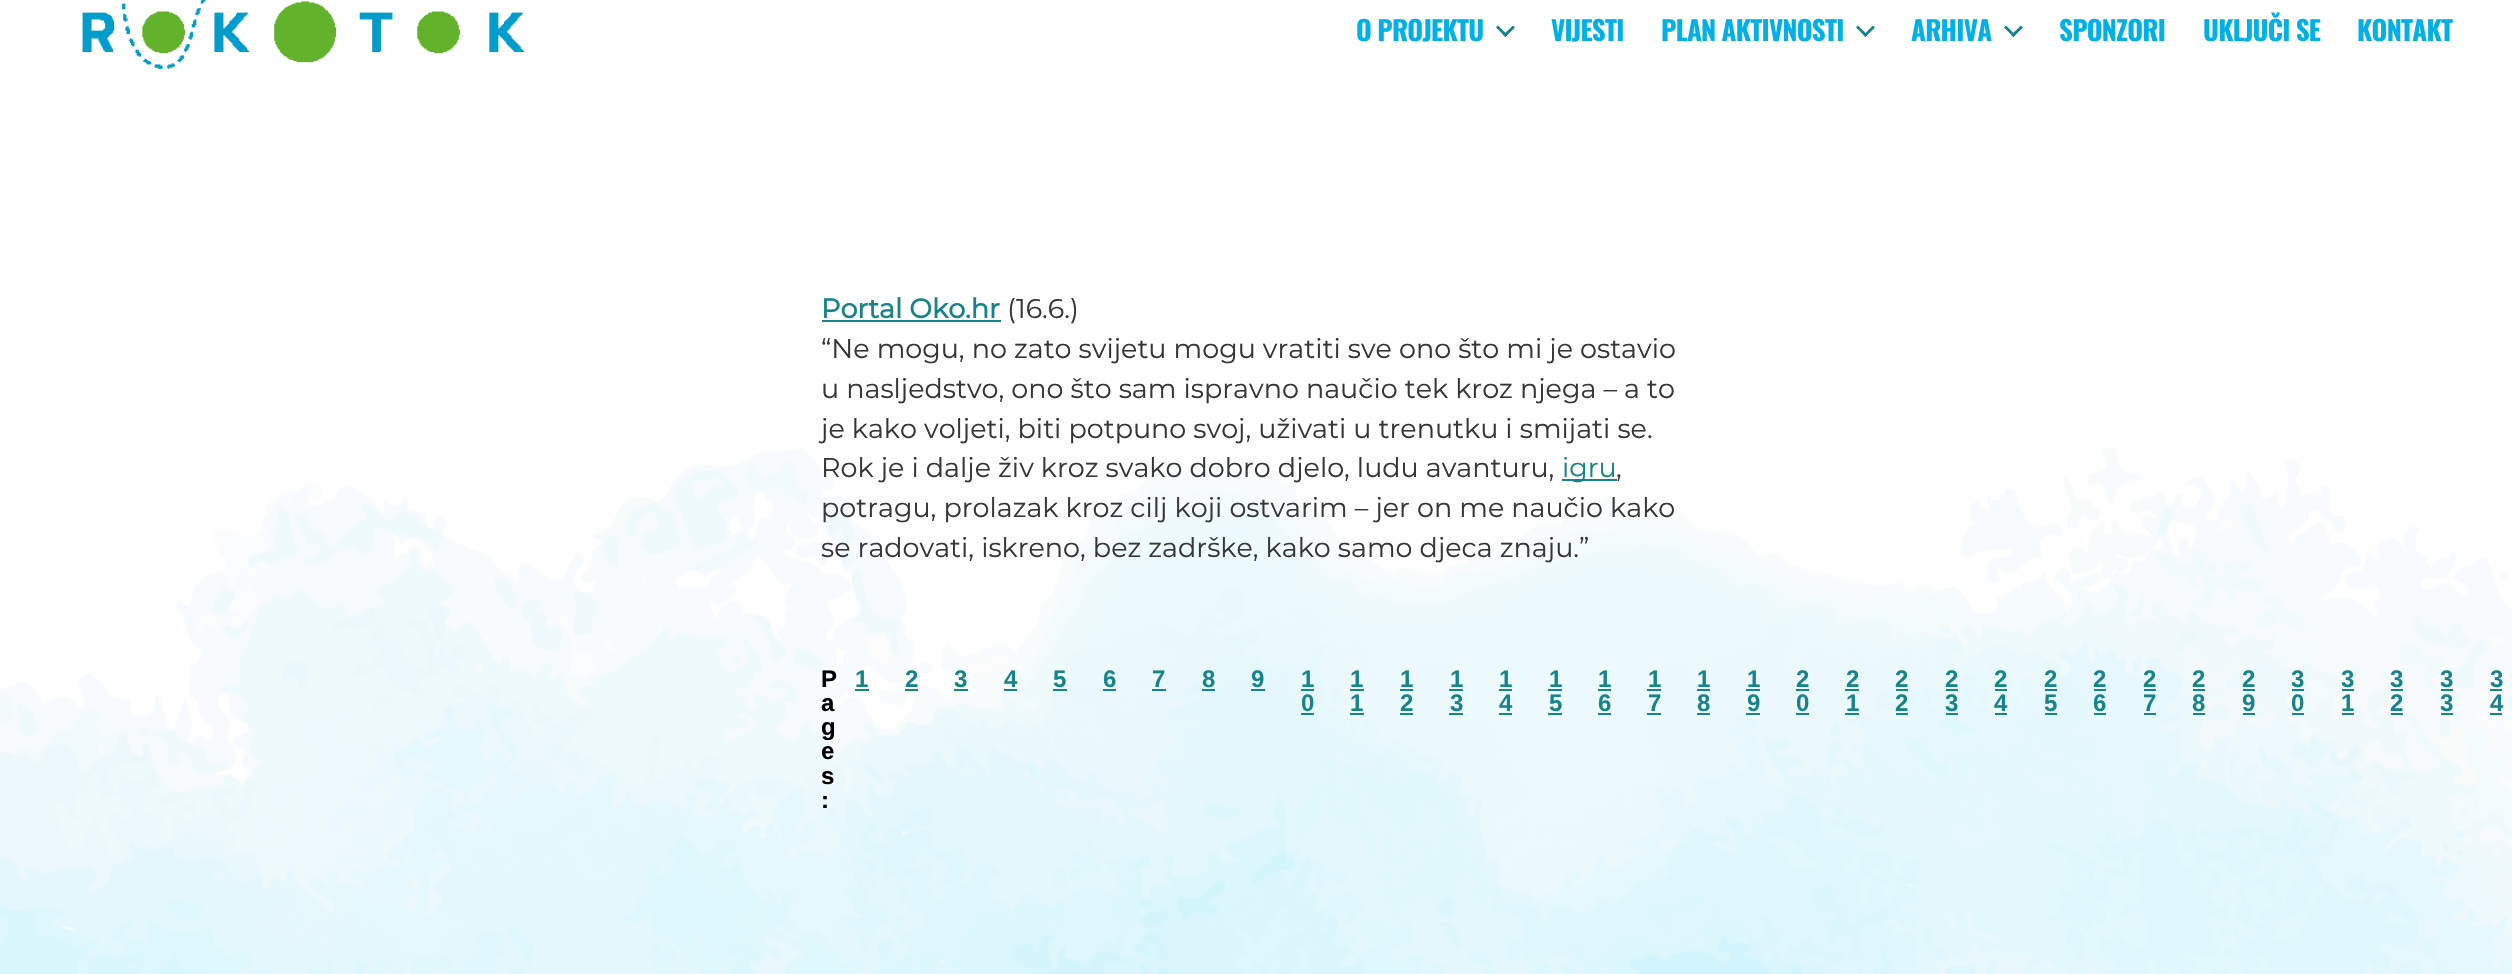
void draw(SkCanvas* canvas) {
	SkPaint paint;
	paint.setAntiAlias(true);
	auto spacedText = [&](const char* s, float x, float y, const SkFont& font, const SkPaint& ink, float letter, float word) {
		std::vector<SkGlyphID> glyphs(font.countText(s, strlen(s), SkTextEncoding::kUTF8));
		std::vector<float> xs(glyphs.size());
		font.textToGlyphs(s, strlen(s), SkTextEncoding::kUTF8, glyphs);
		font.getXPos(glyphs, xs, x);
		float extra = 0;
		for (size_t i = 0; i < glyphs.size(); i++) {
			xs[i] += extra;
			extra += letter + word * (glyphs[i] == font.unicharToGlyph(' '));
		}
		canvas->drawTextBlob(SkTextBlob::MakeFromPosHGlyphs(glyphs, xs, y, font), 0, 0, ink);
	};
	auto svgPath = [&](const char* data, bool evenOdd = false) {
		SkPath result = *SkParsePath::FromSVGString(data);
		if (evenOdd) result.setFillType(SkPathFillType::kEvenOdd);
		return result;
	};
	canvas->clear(0xffffffff);
	canvas->drawImageRect(SkImages::DeferredFromEncodedData(SkData::MakeFromFileName("img1.png")), SkRect::MakeXYWH(0, 447, 2512, 527), SkSamplingOptions());
	canvas->drawImageRect(SkImages::DeferredFromEncodedData(SkData::MakeFromFileName("img2.png")), SkRect::MakeXYWH(82, 0, 443, 69), SkSamplingOptions());
	SkFont f1(fontMgr->matchFamilyStyle("Oswald", SkFontStyle::Bold()), 27);
	f1.setSubpixel(true);
	paint.setColor(0xff00b0e7);
	spacedText("O PROJEKTU", 1356, 41, f1, paint, -0.75, 0);
	paint.setColor(0xff17838b);
	canvas->drawPath(svgPath("M1496 27.5L1498 25.5L1507.5 35L1505.5 37Z"), paint);
	canvas->drawPath(svgPath("M1503 35L1513 25.5L1515 27.5L1505.5 37Z"), paint);
	paint.setColor(0xff00b0e7);
	spacedText("VIJESTI", 1551, 41, f1, paint, -0.75, 0);
	spacedText("PLAN AKTIVNOSTI", 1661, 41, f1, paint, -0.75, 0);
	paint.setColor(0xff17838b);
	canvas->drawPath(svgPath("M1856 27.5L1858 25.5L1867.5 35L1865.5 37Z"), paint);
	canvas->drawPath(svgPath("M1863.5 35L1873 25.5L1875 27.5L1865.5 37Z"), paint);
	paint.setColor(0xff00b0e7);
	spacedText("ARHIVA", 1911, 41, f1, paint, -0.75, 0);
	paint.setColor(0xff17838b);
	canvas->drawPath(svgPath("M2004 27.5L2006 25.5L2015.5 35L2013.5 37Z"), paint);
	canvas->drawPath(svgPath("M2011 35L2021 25.5L2023 27.5L2013.5 37Z"), paint);
	paint.setColor(0xff00b0e7);
	spacedText("SPONZORI", 2059, 41, f1, paint, -0.75, 0);
	spacedText("UKLJUČI SE", 2203, 41, f1, paint, -0.75, 0);
	spacedText("KONTAKT", 2357, 41, f1, paint, -0.75, 0);
	SkFont f2(fontMgr->matchFamilyStyle("Montserrat", SkFontStyle::Bold()), 27);
	f2.setSubpixel(true);
	paint.setColor(0xff17838b);
	canvas->drawString("Portal Oko.hr", 821, 318, f2, paint);
	canvas->drawRect(SkRect::MakeXYWH(822, 320, 179, 2), paint);
	SkFont f3(fontMgr->matchFamilyStyle("Montserrat", SkFontStyle(100, SkFontStyle::kNormal_Width, SkFontStyle::kUpright_Slant)), 27);
	f3.setSubpixel(true);
	paint.setColor(0xff363636);
	canvas->drawString("(16.6.)", 1007, 318, f3, paint);
	canvas->drawString("“Ne mogu, no zato svijetu mogu vratiti sve ono što mi je ostavio", 821, 358, f3, paint);
	canvas->drawString("u nasljedstvo, ono što sam ispravno naučio tek kroz njega – a to", 821, 398, f3, paint);
	canvas->drawString("je kako voljeti, biti potpuno svoj, uživati u trenutku i smijati se.", 821, 438, f3, paint);
	canvas->drawString("Rok je i dalje živ kroz svako dobro djelo, ludu avanturu,", 821, 477, f3, paint);
	paint.setColor(0xff17838b);
	canvas->drawRect(SkRect::MakeXYWH(1562, 479, 55, 2), paint);
	canvas->drawString("igru", 1562, 477, f3, paint);
	paint.setColor(0xff363636);
	canvas->drawString(",", 1616, 477, f3, paint);
	canvas->drawString("potragu, prolazak kroz cilj koji ostvarim – jer on me naučio kako", 821, 517, f3, paint);
	canvas->drawString("se radovati, iskreno, bez zadrške, kako samo djeca znaju.”", 821, 557, f3, paint);
	SkFont f4(fontMgr->matchFamilyStyle("Liberation Sans", SkFontStyle::Bold()), 24);
	f4.setSubpixel(true);
	paint.setColor(0xff000000);
	canvas->drawString("P", 821, 687, f4, paint);
	canvas->drawString("a", 821, 711, f4, paint);
	canvas->drawString("g", 821, 735, f4, paint);
	canvas->drawString("e", 821, 759, f4, paint);
	canvas->drawString("s", 821, 784, f4, paint);
	canvas->drawString(":", 821, 808, f4, paint);
	paint.setColor(0xff17838b);
	canvas->drawString("1", 855, 687, f4, paint);
	canvas->drawRect(SkRect::MakeXYWH(855, 689, 14, 2), paint);
	canvas->drawString("2", 905, 687, f4, paint);
	canvas->drawRect(SkRect::MakeXYWH(905, 689, 13, 2), paint);
	canvas->drawString("3", 954, 687, f4, paint);
	canvas->drawRect(SkRect::MakeXYWH(954, 689, 14, 2), paint);
	canvas->drawString("4", 1004, 687, f4, paint);
	canvas->drawRect(SkRect::MakeXYWH(1004, 689, 13, 2), paint);
	canvas->drawString("5", 1053, 687, f4, paint);
	canvas->drawRect(SkRect::MakeXYWH(1053, 689, 14, 2), paint);
	canvas->drawString("6", 1103, 687, f4, paint);
	canvas->drawRect(SkRect::MakeXYWH(1103, 689, 13, 2), paint);
	canvas->drawString("7", 1152, 687, f4, paint);
	canvas->drawRect(SkRect::MakeXYWH(1152, 689, 14, 2), paint);
	canvas->drawString("8", 1202, 687, f4, paint);
	canvas->drawRect(SkRect::MakeXYWH(1202, 689, 13, 2), paint);
	canvas->drawString("9", 1251, 687, f4, paint);
	canvas->drawRect(SkRect::MakeXYWH(1251, 689, 14, 2), paint);
	canvas->drawString("1", 1301, 687, f4, paint);
	canvas->drawRect(SkRect::MakeXYWH(1301, 689, 13, 2), paint);
	canvas->drawString("0", 1301, 711, f4, paint);
	canvas->drawRect(SkRect::MakeXYWH(1301, 713, 13, 2), paint);
	canvas->drawString("1", 1350, 687, f4, paint);
	canvas->drawRect(SkRect::MakeXYWH(1350, 689, 14, 2), paint);
	canvas->drawString("1", 1350, 711, f4, paint);
	canvas->drawRect(SkRect::MakeXYWH(1350, 713, 14, 2), paint);
	canvas->drawString("1", 1400, 687, f4, paint);
	canvas->drawRect(SkRect::MakeXYWH(1400, 689, 13, 2), paint);
	canvas->drawString("2", 1400, 711, f4, paint);
	canvas->drawRect(SkRect::MakeXYWH(1400, 713, 13, 2), paint);
	canvas->drawString("1", 1450, 687, f4, paint);
	canvas->drawRect(SkRect::MakeXYWH(1449, 689, 14, 2), paint);
	canvas->drawString("3", 1450, 711, f4, paint);
	canvas->drawRect(SkRect::MakeXYWH(1449, 713, 14, 2), paint);
	canvas->drawString("1", 1499, 687, f4, paint);
	canvas->drawRect(SkRect::MakeXYWH(1499, 689, 13, 2), paint);
	canvas->drawString("4", 1499, 711, f4, paint);
	canvas->drawRect(SkRect::MakeXYWH(1499, 713, 13, 2), paint);
	canvas->drawString("1", 1549, 687, f4, paint);
	canvas->drawRect(SkRect::MakeXYWH(1548, 689, 14, 2), paint);
	canvas->drawString("5", 1549, 711, f4, paint);
	canvas->drawRect(SkRect::MakeXYWH(1548, 713, 14, 2), paint);
	canvas->drawString("1", 1598, 687, f4, paint);
	canvas->drawRect(SkRect::MakeXYWH(1598, 689, 13, 2), paint);
	canvas->drawString("6", 1598, 711, f4, paint);
	canvas->drawRect(SkRect::MakeXYWH(1598, 713, 13, 2), paint);
	canvas->drawString("1", 1648, 687, f4, paint);
	canvas->drawRect(SkRect::MakeXYWH(1647, 689, 14, 2), paint);
	canvas->drawString("7", 1648, 711, f4, paint);
	canvas->drawRect(SkRect::MakeXYWH(1647, 713, 14, 2), paint);
	canvas->drawString("1", 1697, 687, f4, paint);
	canvas->drawRect(SkRect::MakeXYWH(1697, 689, 13, 2), paint);
	canvas->drawString("8", 1697, 711, f4, paint);
	canvas->drawRect(SkRect::MakeXYWH(1697, 713, 13, 2), paint);
	canvas->drawString("1", 1747, 687, f4, paint);
	canvas->drawRect(SkRect::MakeXYWH(1746, 689, 14, 2), paint);
	canvas->drawString("9", 1747, 711, f4, paint);
	canvas->drawRect(SkRect::MakeXYWH(1746, 713, 14, 2), paint);
	canvas->drawString("2", 1796, 687, f4, paint);
	canvas->drawRect(SkRect::MakeXYWH(1796, 689, 13, 2), paint);
	canvas->drawString("0", 1796, 711, f4, paint);
	canvas->drawRect(SkRect::MakeXYWH(1796, 713, 13, 2), paint);
	canvas->drawString("2", 1846, 687, f4, paint);
	canvas->drawRect(SkRect::MakeXYWH(1845, 689, 14, 2), paint);
	canvas->drawString("1", 1846, 711, f4, paint);
	canvas->drawRect(SkRect::MakeXYWH(1845, 713, 14, 2), paint);
	canvas->drawString("2", 1895, 687, f4, paint);
	canvas->drawRect(SkRect::MakeXYWH(1896, 689, 12, 2), paint);
	canvas->drawString("2", 1895, 711, f4, paint);
	canvas->drawRect(SkRect::MakeXYWH(1896, 713, 12, 2), paint);
	canvas->drawString("2", 1945, 687, f4, paint);
	canvas->drawRect(SkRect::MakeXYWH(1946, 689, 12, 2), paint);
	canvas->drawString("3", 1945, 711, f4, paint);
	canvas->drawRect(SkRect::MakeXYWH(1946, 713, 12, 2), paint);
	canvas->drawString("2", 1994, 687, f4, paint);
	canvas->drawRect(SkRect::MakeXYWH(1995, 689, 12, 2), paint);
	canvas->drawString("4", 1994, 711, f4, paint);
	canvas->drawRect(SkRect::MakeXYWH(1995, 713, 12, 2), paint);
	canvas->drawString("2", 2044, 687, f4, paint);
	canvas->drawRect(SkRect::MakeXYWH(2045, 689, 12, 2), paint);
	canvas->drawString("5", 2044, 711, f4, paint);
	canvas->drawRect(SkRect::MakeXYWH(2045, 713, 12, 2), paint);
	canvas->drawString("2", 2093, 687, f4, paint);
	canvas->drawRect(SkRect::MakeXYWH(2094, 689, 12, 2), paint);
	canvas->drawString("6", 2093, 711, f4, paint);
	canvas->drawRect(SkRect::MakeXYWH(2094, 713, 12, 2), paint);
	canvas->drawString("2", 2143, 687, f4, paint);
	canvas->drawRect(SkRect::MakeXYWH(2144, 689, 12, 2), paint);
	canvas->drawString("7", 2143, 711, f4, paint);
	canvas->drawRect(SkRect::MakeXYWH(2144, 713, 12, 2), paint);
	canvas->drawString("2", 2192, 687, f4, paint);
	canvas->drawRect(SkRect::MakeXYWH(2193, 689, 12, 2), paint);
	canvas->drawString("8", 2192, 711, f4, paint);
	canvas->drawRect(SkRect::MakeXYWH(2193, 713, 12, 2), paint);
	canvas->drawString("2", 2242, 687, f4, paint);
	canvas->drawRect(SkRect::MakeXYWH(2243, 689, 12, 2), paint);
	canvas->drawString("9", 2242, 711, f4, paint);
	canvas->drawRect(SkRect::MakeXYWH(2243, 713, 12, 2), paint);
	canvas->drawString("3", 2291, 687, f4, paint);
	canvas->drawRect(SkRect::MakeXYWH(2292, 689, 12, 2), paint);
	canvas->drawString("0", 2291, 711, f4, paint);
	canvas->drawRect(SkRect::MakeXYWH(2292, 713, 12, 2), paint);
	canvas->drawString("3", 2341, 687, f4, paint);
	canvas->drawRect(SkRect::MakeXYWH(2342, 689, 12, 2), paint);
	canvas->drawString("1", 2341, 711, f4, paint);
	canvas->drawRect(SkRect::MakeXYWH(2342, 713, 12, 2), paint);
	canvas->drawString("3", 2390, 687, f4, paint);
	canvas->drawRect(SkRect::MakeXYWH(2391, 689, 12, 2), paint);
	canvas->drawString("2", 2390, 711, f4, paint);
	canvas->drawRect(SkRect::MakeXYWH(2391, 713, 12, 2), paint);
	canvas->drawString("3", 2440, 687, f4, paint);
	canvas->drawRect(SkRect::MakeXYWH(2441, 689, 12, 2), paint);
	canvas->drawString("3", 2440, 711, f4, paint);
	canvas->drawRect(SkRect::MakeXYWH(2441, 713, 12, 2), paint);
	canvas->drawString("3", 2490, 687, f4, paint);
	canvas->drawRect(SkRect::MakeXYWH(2490, 689, 12, 2), paint);
	canvas->drawString("4", 2490, 711, f4, paint);
	canvas->drawRect(SkRect::MakeXYWH(2490, 713, 12, 2), paint);
}
